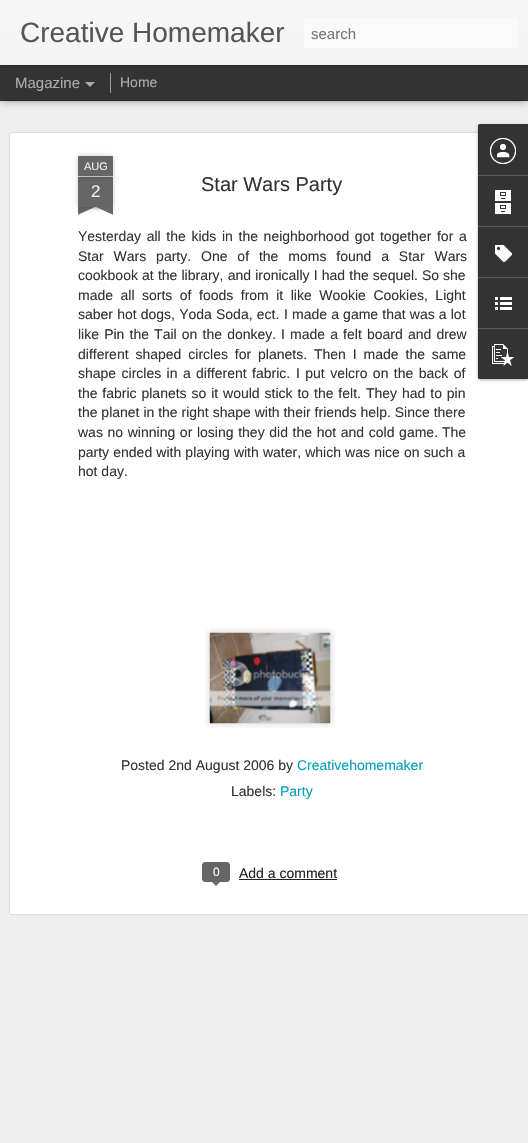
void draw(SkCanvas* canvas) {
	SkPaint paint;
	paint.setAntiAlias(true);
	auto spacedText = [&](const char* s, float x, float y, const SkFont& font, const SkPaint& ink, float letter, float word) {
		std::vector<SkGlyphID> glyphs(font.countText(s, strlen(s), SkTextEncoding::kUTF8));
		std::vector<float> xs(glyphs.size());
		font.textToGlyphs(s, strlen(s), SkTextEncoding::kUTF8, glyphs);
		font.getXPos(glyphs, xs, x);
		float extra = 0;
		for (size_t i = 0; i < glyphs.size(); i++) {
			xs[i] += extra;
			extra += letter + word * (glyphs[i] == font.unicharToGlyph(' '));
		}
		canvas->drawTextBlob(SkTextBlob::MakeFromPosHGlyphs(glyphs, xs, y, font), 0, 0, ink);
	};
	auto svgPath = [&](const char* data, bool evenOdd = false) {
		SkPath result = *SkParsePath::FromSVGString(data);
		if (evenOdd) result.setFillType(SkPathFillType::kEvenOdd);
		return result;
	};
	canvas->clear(0xff333333);
	paint.setColor(0xffeeeeee);
	canvas->drawRect(SkRect::MakeXYWH(0, 101, 528, 1042), paint);
	paint.setColor(0x80000000);
	paint.setMaskFilter(SkMaskFilter::MakeBlur(kNormal_SkBlurStyle, 4));
	canvas->drawRect(SkRect::MakeXYWH(0, 65, 528, 35), paint);
	paint.setMaskFilter(nullptr);
	paint.setColor(0xff333333);
	canvas->drawRect(SkRect::MakeXYWH(0, 65, 528, 35), paint);
	paint.setColor(0xff999999);
	canvas->drawRect(SkRect::MakeXYWH(110, 73, 1, 20), paint);
	paint.setColor(0x4d000000);
	paint.setMaskFilter(SkMaskFilter::MakeBlur(kNormal_SkBlurStyle, 2.5));
	canvas->drawRect(SkRect::MakeXYWH(0, 0, 528, 65), paint);
	paint.setMaskFilter(nullptr);
	{
		const SkColor colors[] = {0xfff7f7f7, 0xfff4f4f4};
		const float stops[] = {0, 1};
		const SkPoint ends[] = {{0, 0}, {0, 65}};
		paint.setShader(SkGradientShader::MakeLinear(ends, colors, stops, 2, SkTileMode::kClamp));
		paint.setAlpha(255);
	}
	canvas->drawRect(SkRect::MakeXYWH(0, 0, 528, 65), paint);
	SkFont f1(fontMgr->matchFamilyStyle("Liberation Sans", SkFontStyle::Normal()), 28);
	f1.setSubpixel(true);
	paint.setShader(nullptr);
	paint.setColor(0xff555555);
	canvas->drawString("Creative Homemaker", 20, 42, f1, paint);
	paint.setColor(0xfffafafa);
	canvas->drawRoundRect(SkRect::MakeXYWH(304, 18, 214, 30), 3, 3, paint);
	SkFont f2(fontMgr->matchFamilyStyle("Liberation Sans", SkFontStyle::Normal()), 15);
	f2.setSubpixel(true);
	paint.setColor(0xff757575);
	canvas->drawString("search", 311, 39, f2, paint);
	paint.setColor(0xffadadad);
	canvas->drawString("Magazine", 15, 88, f2, paint);
	canvas->drawPath(svgPath("M85 82H95L90 87Z"), paint);
	SkFont f3(fontMgr->matchFamilyStyle("Liberation Sans", SkFontStyle::Normal()), 14);
	f3.setSubpixel(true);
	canvas->drawString("Home", 120, 87, f3, paint);
	paint.setColor(0xffffffff);
	canvas->drawRect(SkRect::MakeXYWH(8, 131, 520, 785), paint);
	canvas->drawImageRect(SkImages::DeferredFromEncodedData(SkData::MakeFromFileName("img1.png")), SkRect::MakeXYWH(8, 131, 520, 785), SkSamplingOptions());
	paint.setColor(0x33000000);
	paint.setMaskFilter(SkMaskFilter::MakeBlur(kNormal_SkBlurStyle, 2.5));
	canvas->drawRect(SkRect::MakeXYWH(78, 177, 35, 30), paint);
	paint.setMaskFilter(nullptr);
	paint.setColor(0xff666666);
	canvas->drawRect(SkRect::MakeXYWH(78, 177, 35, 30), paint);
	paint.setColor(0x33000000);
	paint.setMaskFilter(SkMaskFilter::MakeBlur(kNormal_SkBlurStyle, 2.5));
	canvas->drawRoundRect(SkRect::MakeXYWH(78, 156, 35, 21), 1, 1, paint);
	paint.setMaskFilter(nullptr);
	paint.setColor(0xff666666);
	canvas->drawPath(svgPath("M79 156H112C112.5 156 113 156.5 113 157V177H78V157C78 156.5 78.5 156 79 156Z"), paint);
	paint.setColor(0xffc2c2c2);
	canvas->drawRect(SkRect::MakeXYWH(78, 176, 35, 1), paint);
	SkFont f4(fontMgr->matchFamilyStyle("Liberation Sans", SkFontStyle::Normal()), 11);
	f4.setSubpixel(true);
	paint.setColor(0xffeeeeee);
	canvas->drawString("AUG", 84, 170, f4, paint);
	SkFont f5(fontMgr->matchFamilyStyle("Liberation Sans", SkFontStyle::Normal()), 17);
	f5.setSubpixel(true);
	canvas->drawString("2", 91, 197, f5, paint);
	canvas->save();
	canvas->clipRect(SkRect::MakeXYWH(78, 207, 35, 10));
	paint.setColor(0x33000000);
	paint.setMaskFilter(SkMaskFilter::MakeBlur(kNormal_SkBlurStyle, 2.5));
	canvas->drawRect(SkRect::MakeXYWH(69, 197, 50, 10), paint);
	paint.setMaskFilter(nullptr);
	canvas->restore();
	canvas->save();
	canvas->clipRect(SkRect::MakeXYWH(78, 207, 35, 10));
	paint.setColor(0xff666666);
	canvas->drawPath(svgPath("M69 208L115 187L119 196L73 217Z"), paint);
	canvas->restore();
	canvas->save();
	canvas->clipRect(SkRect::MakeXYWH(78, 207, 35, 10));
	paint.setColor(0x33000000);
	paint.setMaskFilter(SkMaskFilter::MakeBlur(kNormal_SkBlurStyle, 2.5));
	canvas->drawRect(SkRect::MakeXYWH(72, 197, 50, 10), paint);
	paint.setMaskFilter(nullptr);
	canvas->restore();
	canvas->save();
	canvas->clipRect(SkRect::MakeXYWH(78, 207, 35, 10));
	paint.setColor(0xff666666);
	canvas->drawPath(svgPath("M76 187L122 208L118 217L72 196Z"), paint);
	canvas->restore();
	SkFont f6(fontMgr->matchFamilyStyle("Liberation Sans", SkFontStyle::Normal()), 20);
	f6.setSubpixel(true);
	paint.setColor(0xff333333);
	canvas->drawString("Star Wars Party", 201, 191, f6, paint);
	spacedText("Yesterday all the kids in the neighborhood got together for a", 78, 241, f3, paint, 0, 1.75);
	spacedText("Star Wars party.", 78, 261, f3, paint, 0, 6);
	spacedText("One of the moms found a Star Wars", 201, 261, f3, paint, 0, 6);
	spacedText("cookbook at the library, and ironically I had the sequel.", 78, 280, f3, paint, 0, 0.25);
	canvas->drawString("So she", 422, 280, f3, paint);
	spacedText("made all sorts of foods from it like Wookie Cookies, Light", 78, 300, f3, paint, 0, 3.6);
	spacedText("saber hot dogs, Yoda Soda, ect.", 78, 319, f3, paint, 0, 0.25);
	spacedText("I made a game that was a lot", 284, 319, f3, paint, 0, 0.25);
	spacedText("like Pin the Tail on the donkey.", 78, 339, f3, paint, 0, 1.25);
	spacedText("I made a felt board and drew", 281, 339, f3, paint, 0, 1.25);
	spacedText("different shaped circles for planets.", 78, 359, f3, paint, 0, 3);
	spacedText("Then I made the same", 314, 359, f3, paint, 0, 3);
	spacedText("shape circles in a different fabric.", 78, 378, f3, paint, 0, 1.5);
	spacedText("I put velcro on the back of", 296, 378, f3, paint, 0, 1.5);
	spacedText("the fabric planets so it would stick to the felt.", 78, 398, f3, paint, 0, 1);
	spacedText("They had to pin", 366, 398, f3, paint, 0, 1);
	canvas->drawString("the planet in the right shape with their friends help. Since there", 78, 417, f3, paint);
	spacedText("was no winning or losing they did the hot and cold game.", 78, 437, f3, paint, 0, 0.75);
	canvas->drawString("The", 442, 437, f3, paint);
	spacedText("party ended with playing with water, which was nice on such a", 78, 457, f3, paint, 0, 0.25);
	canvas->drawString("hot day.", 78, 476, f3, paint);
	canvas->drawImageRect(SkImages::DeferredFromEncodedData(SkData::MakeFromFileName("img2.png")), SkRect::MakeXYWH(205, 628, 130, 100), SkSamplingOptions());
	canvas->drawImageRect(SkImages::DeferredFromEncodedData(SkData::MakeFromFileName("img3.png")), SkRect::MakeXYWH(209, 632, 122, 92), SkSamplingOptions());
	canvas->drawString("Posted 2nd August 2006 by", 121, 770, f3, paint);
	paint.setColor(0xff009eb8);
	canvas->drawString("Creativehomemaker", 297, 770, f3, paint);
	paint.setColor(0xff333333);
	canvas->drawString("Labels:", 231, 796, f3, paint);
	paint.setColor(0xff009eb8);
	canvas->drawString("Party", 280, 796, f3, paint);
	paint.setColor(0xff666666);
	canvas->drawRoundRect(SkRect::MakeXYWH(202.5, 862.5, 27, 19), 2.5, 2.5, paint);
	paint.setStroke(true);
	paint.setStrokeWidth(1);
	canvas->drawRoundRect(SkRect::MakeXYWH(202.5, 862.5, 27, 19), 2.5, 2.5, paint);
	SkFont f7(fontMgr->matchFamilyStyle("Liberation Sans", SkFontStyle::Normal()), 12);
	f7.setSubpixel(true);
	paint.setStroke(false);
	paint.setColor(0xffffffff);
	canvas->drawString("0", 213, 876, f7, paint);
	paint.setColor(0xff666666);
	canvas->drawPath(svgPath("M211 881H221L216 886Z"), paint);
	paint.setColor(0xff222222);
	canvas->drawString("Add a comment", 239, 878, f3, paint);
	canvas->drawRect(SkRect::MakeXYWH(239, 879, 98, 1), paint);
	paint.setColor(0x4d000000);
	paint.setMaskFilter(SkMaskFilter::MakeBlur(kNormal_SkBlurStyle, 1.5));
	canvas->drawRoundRect(SkRect::MakeXYWH(478, 125, 50, 255), 2, 2, paint);
	paint.setMaskFilter(nullptr);
	paint.setColor(0xff333333);
	canvas->drawPath(svgPath("M480 124H528V379H480C479 379 478 378 478 377V126C478 125 479 124 480 124Z"), paint);
	canvas->drawPath(svgPath("M480 124H528V175H478V126C478 125 479 124 480 124Z"), paint);
	canvas->drawImageRect(SkImages::DeferredFromEncodedData(SkData::MakeFromFileName("img4.png")), SkRect::MakeXYWH(490, 138, 26, 26), SkSamplingOptions());
	paint.setColor(0xff585858);
	canvas->drawRect(SkRect::MakeXYWH(478, 175, 50, 1), paint);
	canvas->drawImageRect(SkImages::DeferredFromEncodedData(SkData::MakeFromFileName("img5.png")), SkRect::MakeXYWH(495, 190, 16, 24), SkSamplingOptions());
	canvas->drawRect(SkRect::MakeXYWH(478, 226, 50, 1), paint);
	canvas->drawImageRect(SkImages::DeferredFromEncodedData(SkData::MakeFromFileName("img6.png")), SkRect::MakeXYWH(495, 245, 17, 17), SkSamplingOptions());
	canvas->drawRect(SkRect::MakeXYWH(478, 277, 50, 1), paint);
	canvas->drawImageRect(SkImages::DeferredFromEncodedData(SkData::MakeFromFileName("img7.png")), SkRect::MakeXYWH(495, 297, 17, 13), SkSamplingOptions());
	paint.setColor(0xff333333);
	canvas->drawPath(svgPath("M478 328H528V379H480C479 379 478 378 478 377Z"), paint);
	paint.setColor(0xff585858);
	canvas->drawRect(SkRect::MakeXYWH(478, 328, 50, 1), paint);
	canvas->drawImageRect(SkImages::DeferredFromEncodedData(SkData::MakeFromFileName("img8.png")), SkRect::MakeXYWH(492, 344, 22, 22), SkSamplingOptions());
}
